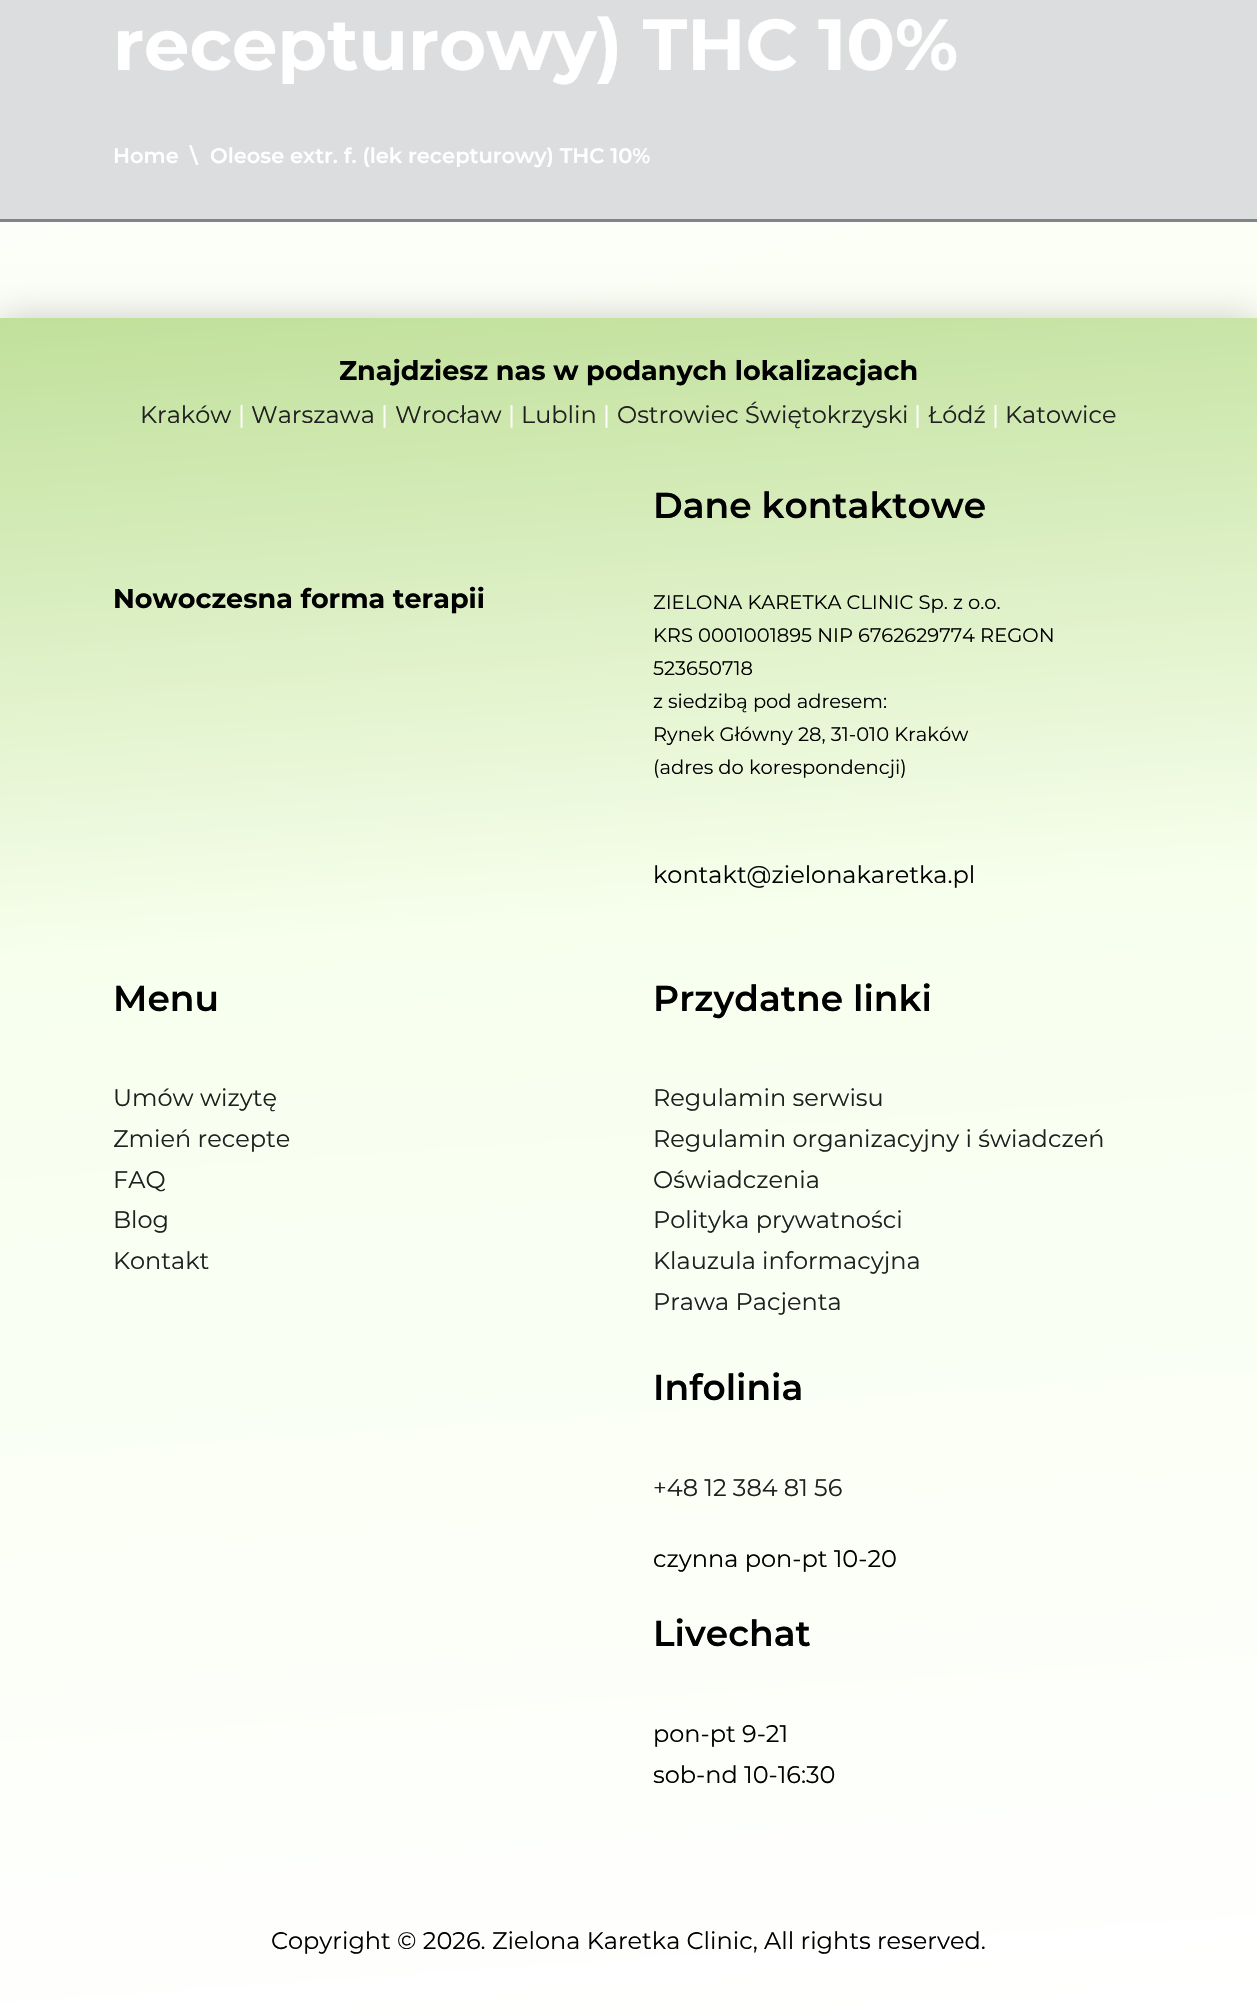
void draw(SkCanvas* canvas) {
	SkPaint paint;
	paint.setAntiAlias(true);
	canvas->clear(0xffffffff);
	{
		const SkColor colors[] = {0xffffffff, 0xfff3ffe3};
		const float stops[] = {0, 1};
		const SkPoint ends[] = {{311, -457}, {946, 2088}};
		paint.setShader(SkGradientShader::MakeLinear(ends, colors, stops, 2, SkTileMode::kClamp));
		paint.setAlpha(255);
	}
	canvas->drawRect(SkRect::MakeXYWH(0, 222, 1257, 96), paint);
	{
		const SkColor colors[] = {0xff81858d, 0xff7b857f};
		const float stops[] = {0, 1};
		const SkPoint ends[] = {{311, -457}, {946, 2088}};
		paint.setShader(SkGradientShader::MakeLinear(ends, colors, stops, 2, SkTileMode::kClamp));
		paint.setAlpha(255);
	}
	canvas->drawRect(SkRect::MakeXYWH(0, 219, 1257, 3), paint);
	{
		const SkColor colors[] = {0xffdcdddf, 0xffdadddb};
		const float stops[] = {0, 1};
		const SkPoint ends[] = {{311, -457}, {946, 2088}};
		paint.setShader(SkGradientShader::MakeLinear(ends, colors, stops, 2, SkTileMode::kClamp));
		paint.setAlpha(255);
	}
	canvas->drawRect(SkRect::MakeXYWH(0, 0, 1257, 219), paint);
	SkFont f1(fontMgr->matchFamilyStyle("Montserrat", SkFontStyle::Bold()), 72);
	f1.setSubpixel(true);
	paint.setShader(nullptr);
	paint.setColor(0xffffffff);
	canvas->drawString("recepturowy) THC 10%", 113, 70, f1, paint);
	SkFont f2(fontMgr->matchFamilyStyle("Montserrat", SkFontStyle(600, SkFontStyle::kNormal_Width, SkFontStyle::kUpright_Slant)), 21);
	f2.setSubpixel(true);
	canvas->drawString("Home", 113, 163, f2, paint);
	canvas->drawString("\\", 190, 163, f2, paint);
	canvas->drawString("Oleose extr. f. (lek recepturowy) THC 10%", 210, 163, f2, paint);
	paint.setColor(0x33000000);
	paint.setMaskFilter(SkMaskFilter::MakeBlur(kNormal_SkBlurStyle, 18));
	canvas->drawRect(SkRect::MakeXYWH(0, 318, 1257, 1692), paint);
	paint.setMaskFilter(nullptr);
	{
		const SkColor colors[] = {0xffffffff, 0xfff7ffed, 0xffc1e09b};
		const float stops[] = {0, 0.64, 1};
		const SkPoint ends[] = {{690, 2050}, {567, 278}};
		paint.setShader(SkGradientShader::MakeLinear(ends, colors, stops, 3, SkTileMode::kClamp));
		paint.setAlpha(255);
	}
	canvas->drawRect(SkRect::MakeXYWH(0, 318, 1257, 1691), paint);
	SkFont f3(fontMgr->matchFamilyStyle("Montserrat", SkFontStyle::Bold()), 27);
	f3.setSubpixel(true);
	paint.setShader(nullptr);
	paint.setColor(0xff000000);
	canvas->drawString("Znajdziesz nas w podanych lokalizacjach", 339, 380, f3, paint);
	SkFont f4(fontMgr->matchFamilyStyle("Montserrat", SkFontStyle::Normal()), 24);
	f4.setSubpixel(true);
	paint.setColor(0xff202020);
	canvas->drawString("Kraków", 140, 423, f4, paint);
	paint.setColor(0xffffffff);
	canvas->drawString("|", 238, 423, f4, paint);
	paint.setColor(0xff202020);
	canvas->drawString("Warszawa", 251, 423, f4, paint);
	paint.setColor(0xffffffff);
	canvas->drawString("|", 381, 423, f4, paint);
	paint.setColor(0xff202020);
	canvas->drawString("Wrocław", 395, 423, f4, paint);
	paint.setColor(0xffffffff);
	canvas->drawString("|", 508, 423, f4, paint);
	paint.setColor(0xff202020);
	canvas->drawString("Lublin", 521, 423, f4, paint);
	paint.setColor(0xffffffff);
	canvas->drawString("|", 603, 423, f4, paint);
	paint.setColor(0xff202020);
	canvas->drawString("Ostrowiec Świętokrzyski", 617, 423, f4, paint);
	paint.setColor(0xffffffff);
	canvas->drawString("|", 914, 423, f4, paint);
	paint.setColor(0xff202020);
	canvas->drawString("Łódź", 928, 423, f4, paint);
	paint.setColor(0xffffffff);
	canvas->drawString("|", 992, 423, f4, paint);
	paint.setColor(0xff202020);
	canvas->drawString("Katowice", 1005, 423, f4, paint);
	paint.setColor(0xff000000);
	canvas->drawString("Nowoczesna forma terapii", 113, 608, f3, paint);
	SkFont f5(fontMgr->matchFamilyStyle("Montserrat", SkFontStyle(600, SkFontStyle::kNormal_Width, SkFontStyle::kUpright_Slant)), 36);
	f5.setSubpixel(true);
	canvas->drawString("Dane kontaktowe", 653, 518, f5, paint);
	SkFont f6(fontMgr->matchFamilyStyle("Montserrat", SkFontStyle::Normal()), 19.5);
	f6.setSubpixel(true);
	canvas->drawString("ZIELONA KARETKA CLINIC Sp. z o.o.", 653, 609, f6, paint);
	canvas->drawString("KRS 0001001895 NIP 6762629774 REGON", 653, 642, f6, paint);
	canvas->drawString("523650718", 653, 675, f6, paint);
	canvas->drawString("z siedzibą pod adresem:", 653, 708, f6, paint);
	canvas->drawString("Rynek Główny 28, 31-010 Kraków", 653, 741, f6, paint);
	canvas->drawString("(adres do korespondencji)", 653, 774, f6, paint);
	canvas->drawString("kontakt@zielonakaretka.pl", 653, 883, f4, paint);
	canvas->drawString("Menu", 113, 1011, f5, paint);
	paint.setColor(0xff202020);
	canvas->drawString("Umów wizytę", 113, 1106, f4, paint);
	canvas->drawString("Zmień recepte", 113, 1147, f4, paint);
	canvas->drawString("FAQ", 113, 1188, f4, paint);
	canvas->drawString("Blog", 113, 1228, f4, paint);
	canvas->drawString("Kontakt", 113, 1269, f4, paint);
	paint.setColor(0xff000000);
	canvas->drawString("Przydatne linki", 653, 1011, f5, paint);
	paint.setColor(0xff202020);
	canvas->drawString("Regulamin serwisu", 653, 1106, f4, paint);
	canvas->drawString("Regulamin organizacyjny i świadczeń", 653, 1147, f4, paint);
	canvas->drawString("Oświadczenia", 653, 1188, f4, paint);
	canvas->drawString("Polityka prywatności", 653, 1228, f4, paint);
	canvas->drawString("Klauzula informacyjna", 653, 1269, f4, paint);
	canvas->drawString("Prawa Pacjenta", 653, 1310, f4, paint);
	paint.setColor(0xff000000);
	canvas->drawString("Infolinia", 653, 1400, f5, paint);
	paint.setColor(0xff202020);
	canvas->drawString("+48 12 384 81 56", 653, 1496, f4, paint);
	paint.setColor(0xff000000);
	canvas->drawString("czynna pon-pt 10-20", 653, 1567, f4, paint);
	canvas->drawString("Livechat", 653, 1646, f5, paint);
	canvas->drawString("pon-pt 9-21", 653, 1742, f4, paint);
	canvas->drawString("sob-nd 10-16:30", 653, 1783, f4, paint);
	canvas->drawString("Copyright © 2026. Zielona Karetka Clinic, All rights reserved.", 271, 1949, f4, paint);
}
